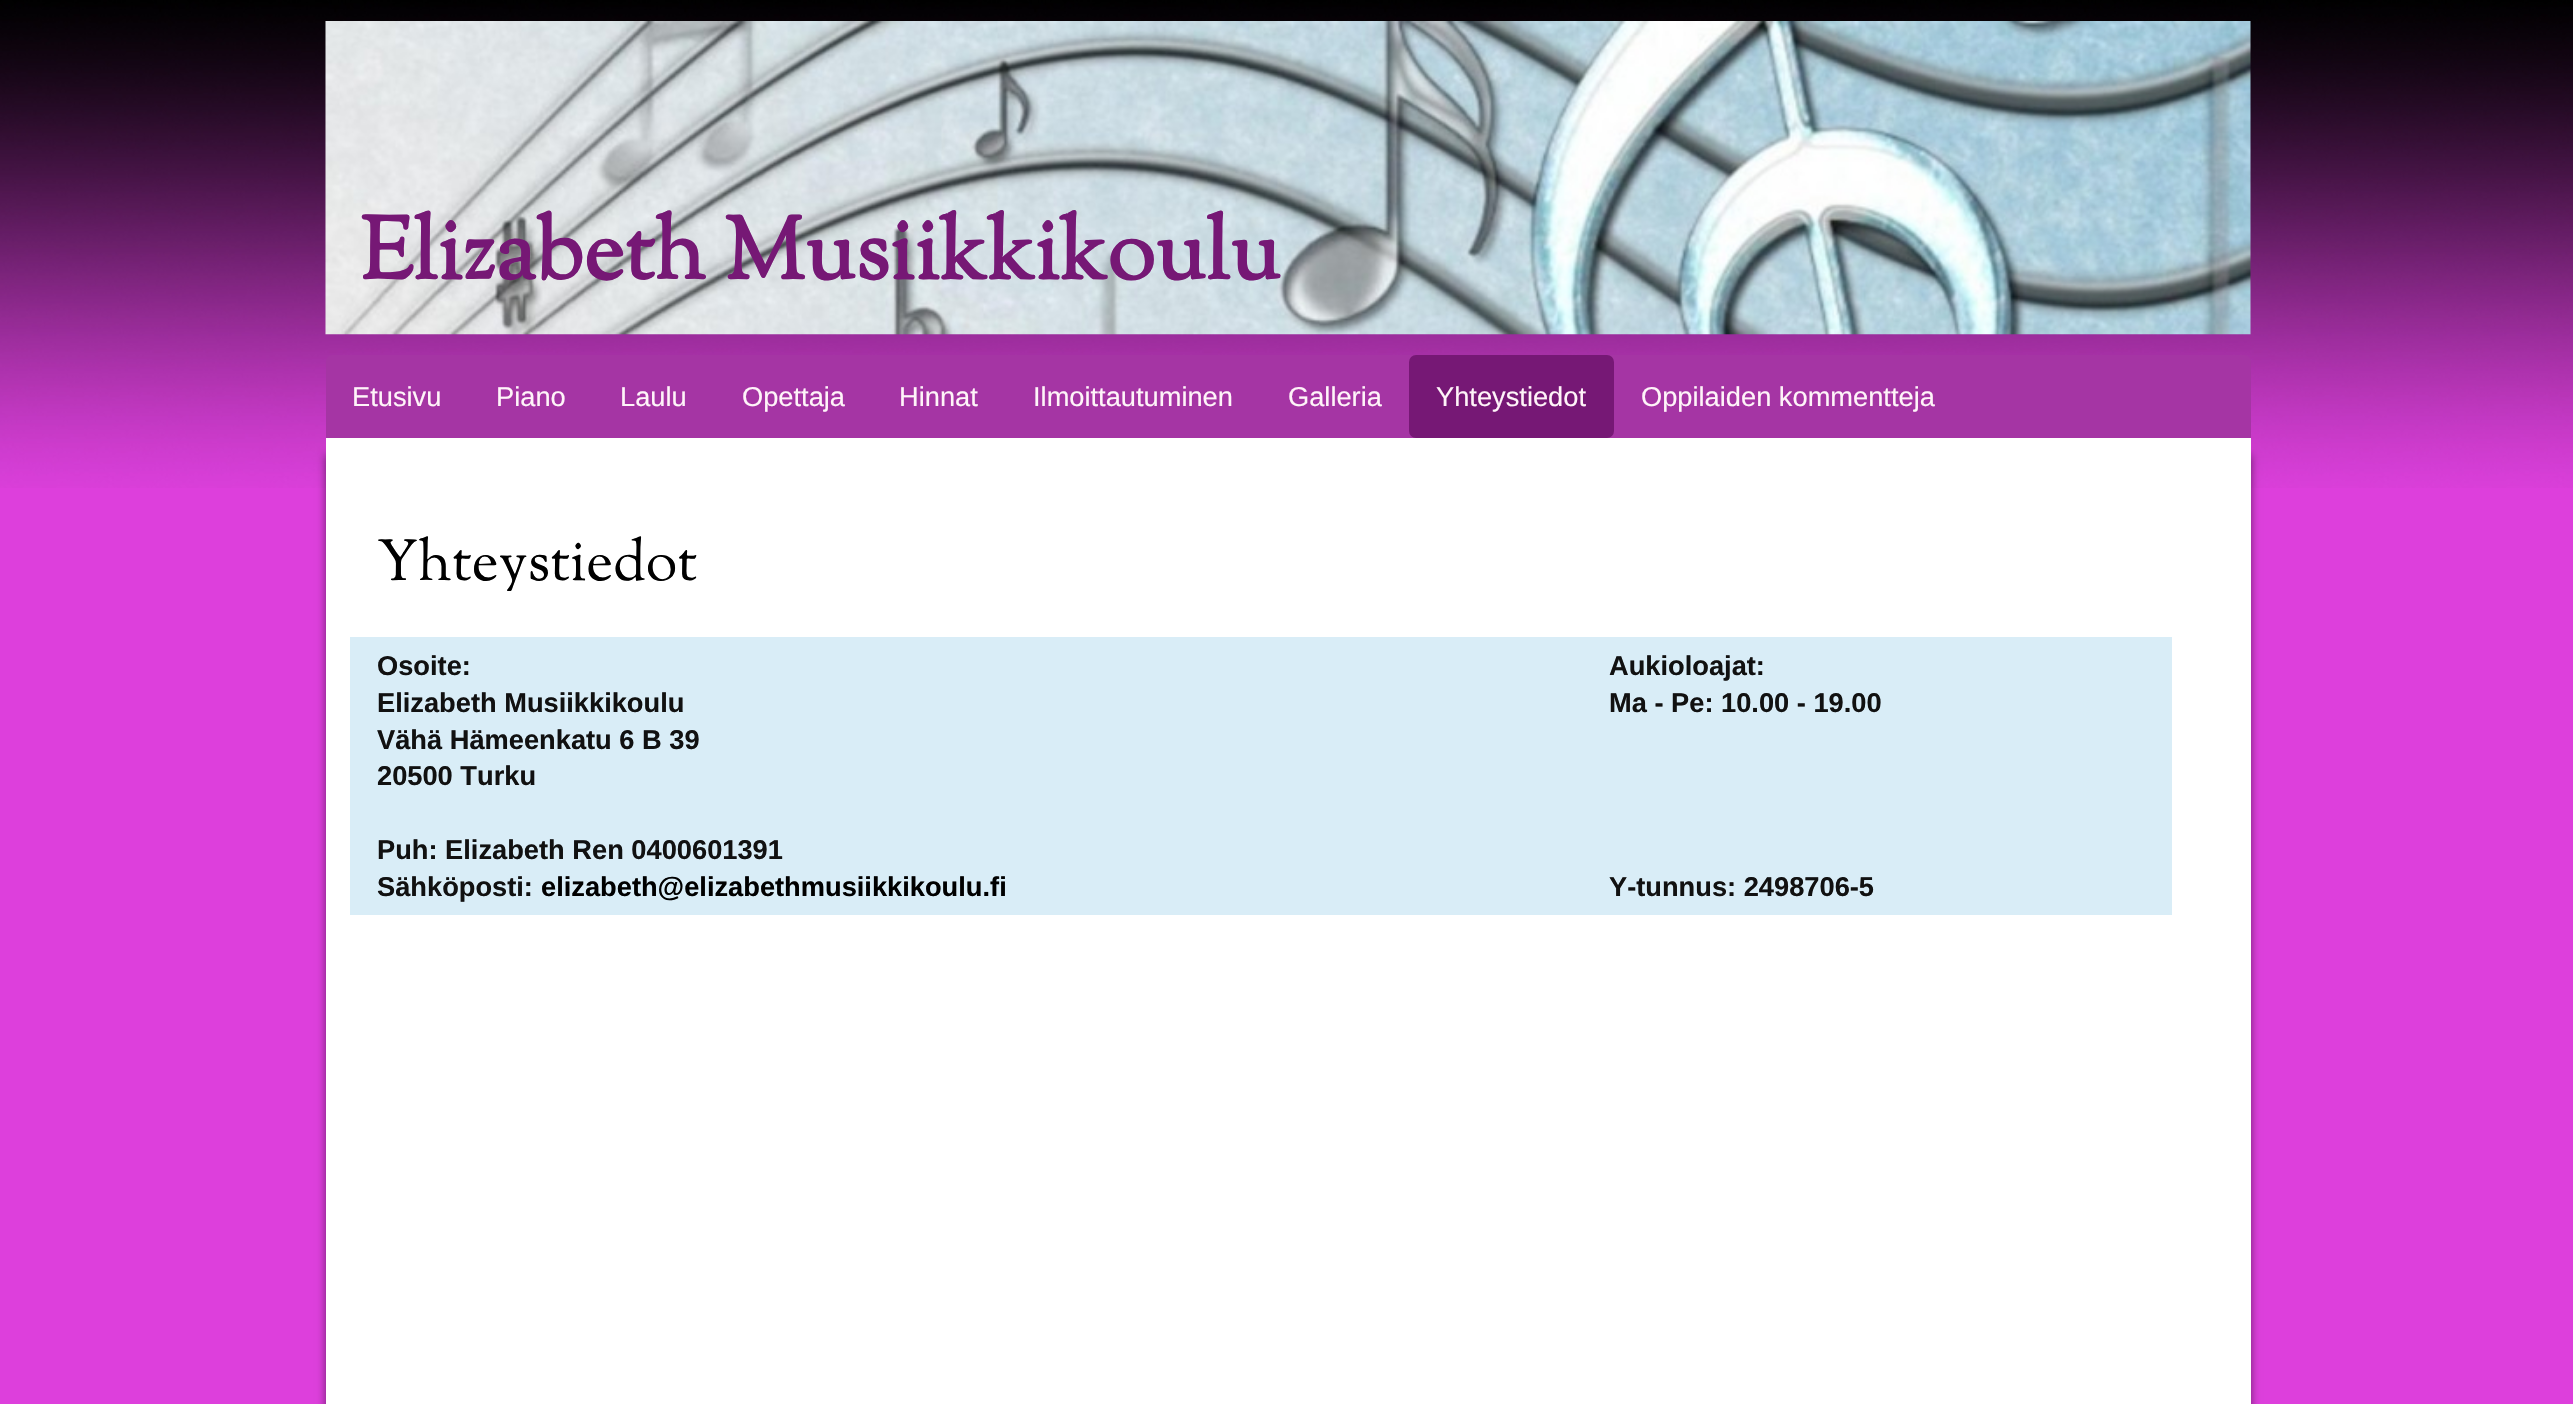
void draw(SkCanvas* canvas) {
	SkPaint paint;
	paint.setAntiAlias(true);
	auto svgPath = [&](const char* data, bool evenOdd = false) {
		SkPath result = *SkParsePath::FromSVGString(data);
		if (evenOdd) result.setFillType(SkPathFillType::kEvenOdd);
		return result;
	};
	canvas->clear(0xffdd3fdc);
	canvas->drawImageRect(SkImages::DeferredFromEncodedData(SkData::MakeFromFileName("img1.png")), SkRect::MakeXYWH(0, 0, 2573, 488), SkSamplingOptions());
	canvas->drawImageRect(SkImages::DeferredFromEncodedData(SkData::MakeFromFileName("img2.png")), SkRect::MakeXYWH(325, 21, 1926, 314), SkSamplingOptions());
	SkFont f1(fontMgr->matchFamilyStyle("Sorts Mill Goudy", SkFontStyle::Bold()), 87.5);
	f1.setSubpixel(true);
	paint.setColor(0xff761875);
	canvas->drawString("Elizabeth Musiikkikoulu", 360, 279, f1, paint);
	paint.setColor(0xffa535a4);
	canvas->drawPath(svgPath("M333 355H2244C2248 355 2251 358 2251 362V438H326V362C326 358 329 355 333 355Z"), paint);
	SkFont f2(fontMgr->matchFamilyStyle("Liberation Sans", SkFontStyle::Normal()), 27.25);
	f2.setSubpixel(true);
	paint.setColor(0xfffff4f9);
	canvas->drawString("Etusivu", 352, 406, f2, paint);
	canvas->drawString("Piano", 496, 406, f2, paint);
	canvas->drawString("Laulu", 620, 406, f2, paint);
	canvas->drawString("Opettaja", 742, 406, f2, paint);
	canvas->drawString("Hinnat", 899, 406, f2, paint);
	canvas->drawString("Ilmoittautuminen", 1033, 406, f2, paint);
	canvas->drawString("Galleria", 1288, 406, f2, paint);
	paint.setColor(0xff761875);
	canvas->drawRoundRect(SkRect::MakeXYWH(1409, 355, 205, 83), 7, 7, paint);
	paint.setColor(0xfffff4f9);
	canvas->drawString("Yhteystiedot", 1436, 406, f2, paint);
	canvas->drawString("Oppilaiden kommentteja", 1641, 406, f2, paint);
	paint.setColor(0x80000000);
	paint.setMaskFilter(SkMaskFilter::MakeBlur(kNormal_SkBlurStyle, 4.5));
	canvas->drawRect(SkRect::MakeXYWH(326, 455, 1907, 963), paint);
	paint.setMaskFilter(nullptr);
	paint.setMaskFilter(SkMaskFilter::MakeBlur(kNormal_SkBlurStyle, 4.5));
	canvas->drawRect(SkRect::MakeXYWH(343, 455, 1908, 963), paint);
	paint.setMaskFilter(nullptr);
	paint.setColor(0xffffffff);
	canvas->drawRect(SkRect::MakeXYWH(326, 438, 1925, 966), paint);
	SkFont f3(fontMgr->matchFamilyStyle("Sorts Mill Goudy", SkFontStyle::Normal()), 57.75);
	f3.setSubpixel(true);
	paint.setColor(0xff000000);
	canvas->drawString("Yhteystiedot", 377, 580, f3, paint);
	paint.setColor(0xffd9edf7);
	canvas->drawRect(SkRect::MakeXYWH(350, 637, 1822, 278), paint);
	SkFont f4(fontMgr->matchFamilyStyle("Liberation Sans", SkFontStyle::Bold()), 27.25);
	f4.setSubpixel(true);
	paint.setColor(0xff111111);
	canvas->drawString("Osoite:", 377, 675, f4, paint);
	canvas->drawString("Elizabeth Musiikkikoulu", 377, 712, f4, paint);
	canvas->drawString("Vähä Hämeenkatu 6 B 39", 377, 749, f4, paint);
	canvas->drawString("20500 Turku", 377, 785, f4, paint);
	canvas->drawString("Puh: Elizabeth Ren 0400601391", 377, 859, f4, paint);
	canvas->drawString("Sähköposti:", 377, 896, f4, paint);
	paint.setColor(0xff000000);
	canvas->drawString("elizabeth@elizabethmusiikkikoulu.fi", 541, 896, f4, paint);
	paint.setColor(0xff111111);
	canvas->drawString("Aukioloajat:", 1609, 675, f4, paint);
	canvas->drawString("Ma - Pe: 10.00 - 19.00", 1609, 712, f4, paint);
	canvas->drawString("Y-tunnus: 2498706-5", 1609, 896, f4, paint);
}
